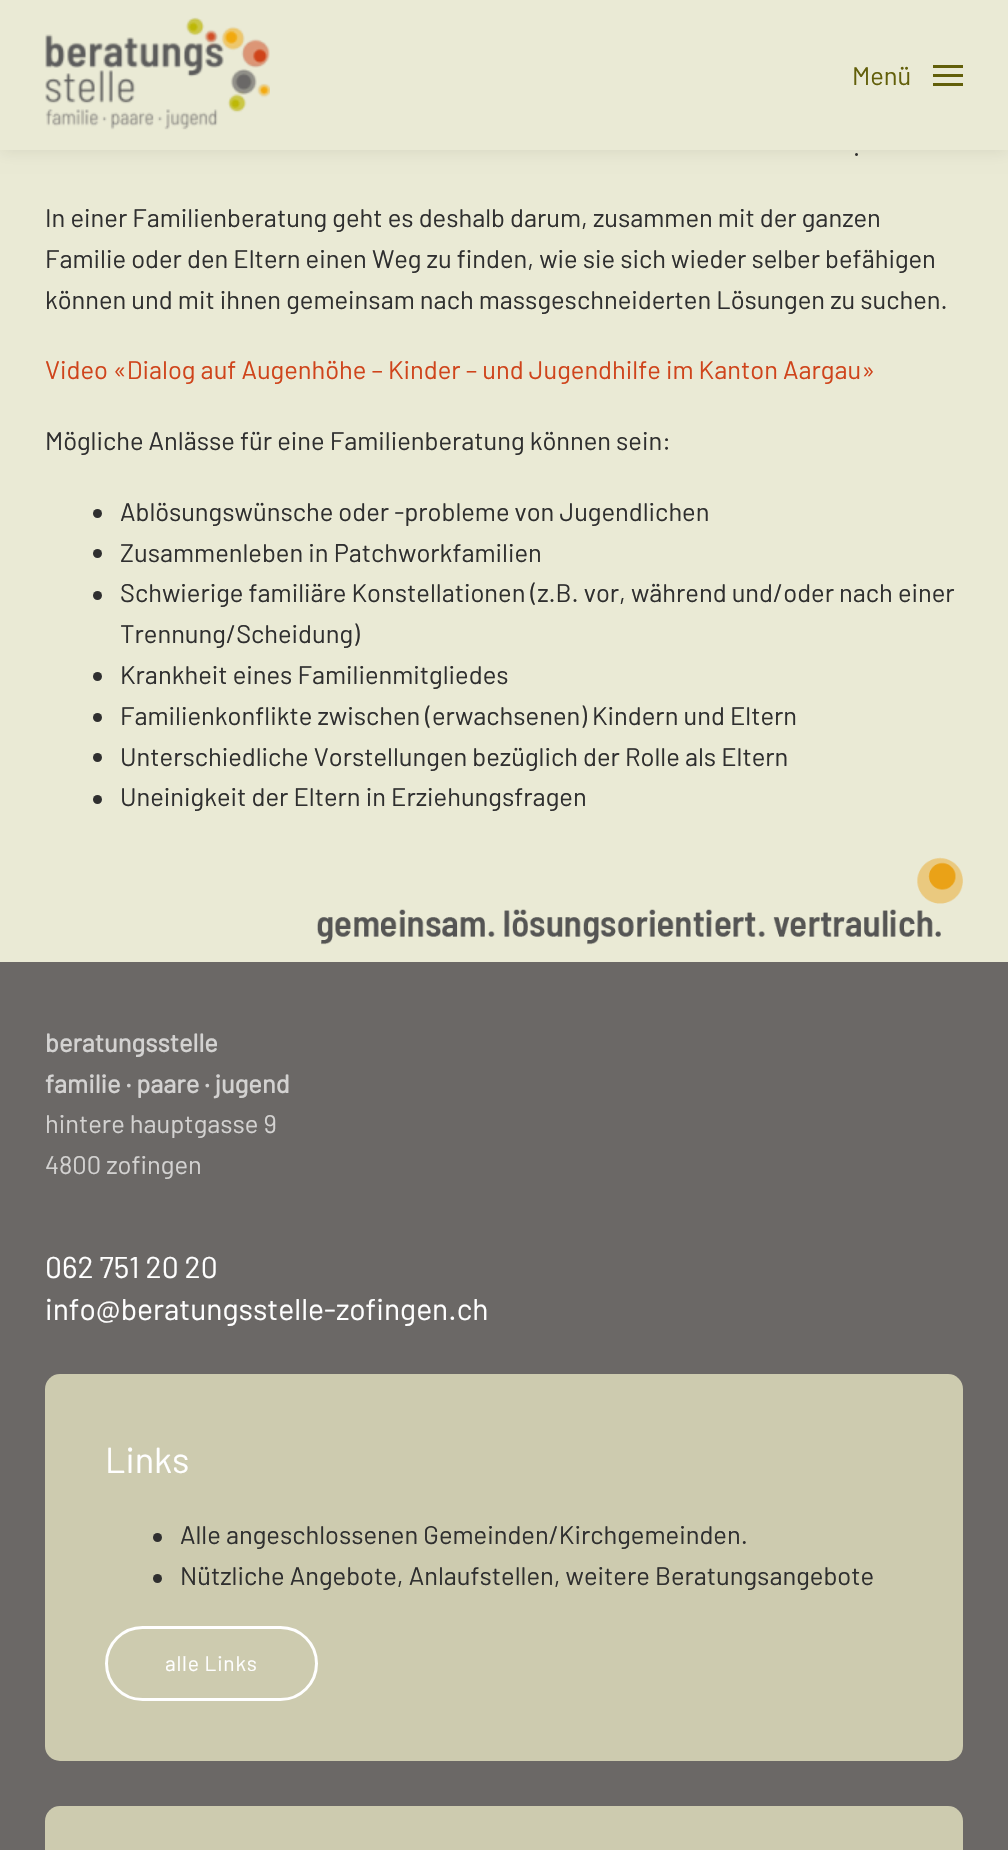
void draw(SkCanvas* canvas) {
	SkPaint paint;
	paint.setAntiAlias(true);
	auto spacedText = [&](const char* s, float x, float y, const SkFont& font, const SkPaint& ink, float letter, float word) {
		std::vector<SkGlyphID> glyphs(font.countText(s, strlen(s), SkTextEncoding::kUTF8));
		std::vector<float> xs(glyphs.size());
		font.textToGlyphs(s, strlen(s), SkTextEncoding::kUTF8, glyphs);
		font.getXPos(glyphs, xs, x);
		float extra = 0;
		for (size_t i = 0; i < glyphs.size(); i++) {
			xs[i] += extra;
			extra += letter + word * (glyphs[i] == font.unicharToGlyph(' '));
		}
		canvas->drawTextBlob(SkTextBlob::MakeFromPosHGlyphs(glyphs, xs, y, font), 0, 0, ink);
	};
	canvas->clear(0xffeaead5);
	paint.setColor(0x14000000);
	paint.setMaskFilter(SkMaskFilter::MakeBlur(kNormal_SkBlurStyle, 7.5));
	canvas->drawRect(SkRect::MakeXYWH(0, 2, 1008, 150), paint);
	paint.setMaskFilter(nullptr);
	paint.setColor(0xffeaead5);
	canvas->drawRect(SkRect::MakeXYWH(0, 0, 1008, 150), paint);
	canvas->drawImageRect(SkImages::DeferredFromEncodedData(SkData::MakeFromFileName("img1.png")), SkRect::MakeXYWH(45, 17, 225, 113), SkSamplingOptions());
	SkFont f1(fontMgr->matchFamilyStyle("Barlow", SkFontStyle::Normal()), 25.5);
	f1.setSubpixel(true);
	paint.setColor(0xff625f0a);
	canvas->drawString("Menü", 852, 85, f1, paint);
	canvas->drawRect(SkRect::MakeXYWH(933, 65, 30, 3), paint);
	canvas->drawRect(SkRect::MakeXYWH(933, 74, 30, 3), paint);
	canvas->drawRect(SkRect::MakeXYWH(933, 83, 30, 3), paint);
	paint.setColor(0xff2f2f2f);
	canvas->drawString(".", 853, 156, f1, paint);
	canvas->drawString("In einer Familienberatung geht es deshalb darum, zusammen mit der ganzen", 45, 227, f1, paint);
	canvas->drawString("Familie oder den Eltern einen Weg zu finden, wie sie sich wieder selber befähigen", 45, 268, f1, paint);
	canvas->drawString("können und mit ihnen gemeinsam nach massgeschneiderten Lösungen zu suchen.", 45, 309, f1, paint);
	paint.setColor(0xffcf441b);
	canvas->drawString("Video «Dialog auf Augenhöhe – Kinder – und Jugendhilfe im Kanton Aargau»", 45, 379, f1, paint);
	paint.setColor(0xff2f2f2f);
	canvas->drawString("Mögliche Anlässe für eine Familienberatung können sein:", 45, 450, f1, paint);
	canvas->drawCircle(97.5, 513.5, 4.5, paint);
	canvas->drawString("Ablösungswünsche oder -probleme von Jugendlichen", 120, 521, f1, paint);
	canvas->drawCircle(97.5, 553.5, 4.5, paint);
	canvas->drawString("Zusammenleben in Patchworkfamilien", 120, 562, f1, paint);
	canvas->drawCircle(97.5, 595.5, 4.5, paint);
	canvas->drawString("Schwierige familiäre Konstellationen (z.B. vor, während und/oder nach einer", 120, 602, f1, paint);
	canvas->drawString("Trennung/Scheidung)", 120, 643, f1, paint);
	canvas->drawCircle(97.5, 676.5, 4.5, paint);
	canvas->drawString("Krankheit eines Familienmitgliedes", 120, 684, f1, paint);
	canvas->drawCircle(97.5, 717.5, 4.5, paint);
	canvas->drawString("Familienkonflikte zwischen (erwachsenen) Kindern und Eltern", 120, 725, f1, paint);
	canvas->drawCircle(97.5, 757.5, 4.5, paint);
	canvas->drawString("Unterschiedliche Vorstellungen bezüglich der Rolle als Eltern", 120, 766, f1, paint);
	canvas->drawCircle(97.5, 799.5, 4.5, paint);
	canvas->drawString("Uneinigkeit der Eltern in Erziehungsfragen", 120, 806, f1, paint);
	canvas->drawImageRect(SkImages::DeferredFromEncodedData(SkData::MakeFromFileName("img2.png")), SkRect::MakeXYWH(317, 857, 646, 88), SkSamplingOptions());
	paint.setColor(0xff6b6866);
	canvas->drawRect(SkRect::MakeXYWH(0, 962, 1008, 888), paint);
	SkFont f2(fontMgr->matchFamilyStyle("Barlow", SkFontStyle::Bold()), 25.5);
	f2.setSubpixel(true);
	paint.setColor(0xffd3d2d1);
	canvas->drawString("beratungsstelle", 45, 1052, f2, paint);
	canvas->drawString("familie · paare · jugend", 45, 1093, f2, paint);
	canvas->drawString("hintere hauptgasse 9", 45, 1133, f1, paint);
	canvas->drawString("4800 zofingen", 45, 1174, f1, paint);
	SkFont f3(fontMgr->matchFamilyStyle("Barlow", SkFontStyle::Normal()), 30);
	f3.setSubpixel(true);
	paint.setColor(0xffffffff);
	canvas->drawString("062 751 20 20", 45, 1278, f3, paint);
	canvas->drawString("info@beratungsstelle-zofingen.ch", 45, 1320, f3, paint);
	paint.setColor(0xffcdcbaf);
	canvas->drawRoundRect(SkRect::MakeXYWH(45, 1374, 918, 387), 15, 15, paint);
	SkFont f4(fontMgr->matchFamilyStyle("Barlow", SkFontStyle::Normal()), 36);
	f4.setSubpixel(true);
	paint.setColor(0xffffffff);
	canvas->drawString("Links", 105, 1473, f4, paint);
	paint.setColor(0xff2f2f2f);
	canvas->drawCircle(157.5, 1537.5, 4.5, paint);
	canvas->drawString("Alle angeschlossenen Gemeinden/Kirchgemeinden.", 180, 1544, f1, paint);
	canvas->drawCircle(157.5, 1578.5, 4.5, paint);
	canvas->drawString("Nützliche Angebote, Anlaufstellen, weitere Beratungsangebote", 180, 1585, f1, paint);
	paint.setStroke(true);
	paint.setStrokeWidth(3);
	paint.setColor(0xffffffff);
	canvas->drawRoundRect(SkRect::MakeXYWH(106.5, 1627.5, 210, 72), 36, 36, paint);
	SkFont f5(fontMgr->matchFamilyStyle("Barlow", SkFontStyle::Normal()), 21);
	f5.setSubpixel(true);
	paint.setStroke(false);
	spacedText("alle Links", 165, 1671, f5, paint, 0.75, 0);
	paint.setColor(0xffcdcbaf);
	canvas->drawRoundRect(SkRect::MakeXYWH(45, 1806, 918, 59), 15, 15, paint);
}
